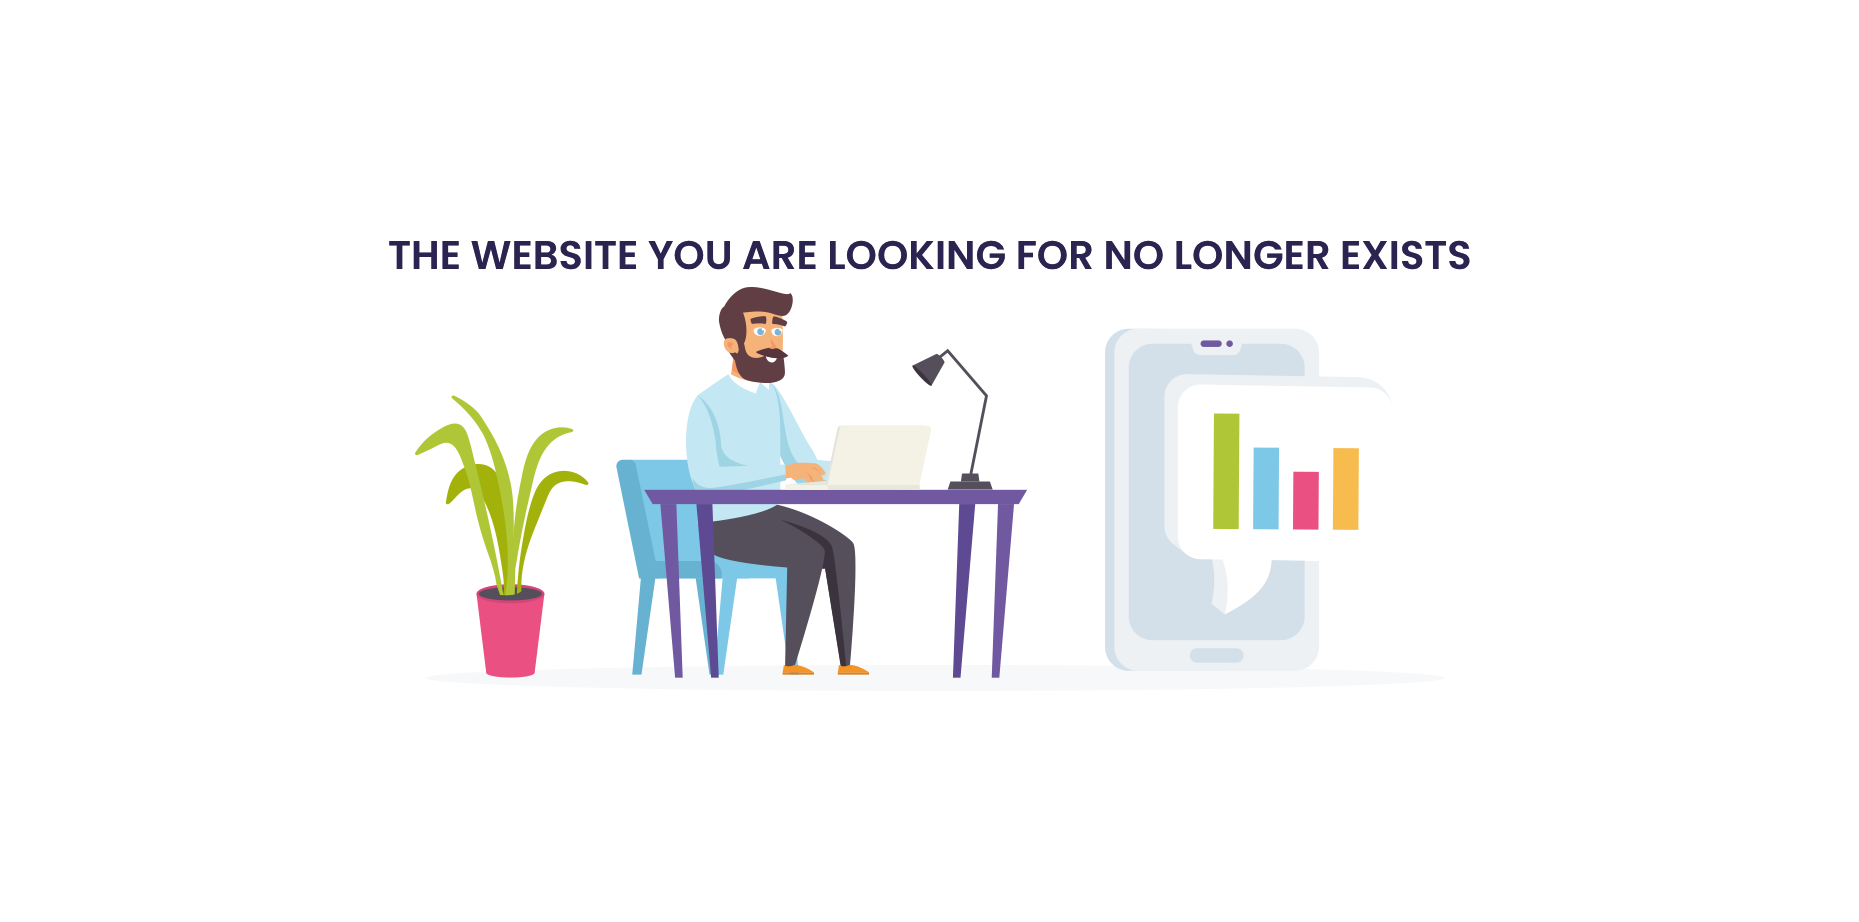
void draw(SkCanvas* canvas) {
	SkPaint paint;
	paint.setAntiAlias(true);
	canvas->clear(0xffffffff);
	SkFont f1(fontMgr->matchFamilyStyle("Poppins", SkFontStyle(600, SkFontStyle::kNormal_Width, SkFontStyle::kUpright_Slant)), 40);
	f1.setSubpixel(true);
	paint.setColor(0xff2b2350);
	canvas->drawString("THE WEBSITE YOU ARE LOOKING FOR NO LONGER EXISTS", 388, 269, f1, paint);
	canvas->drawImageRect(SkImages::DeferredFromEncodedData(SkData::MakeFromFileName("img1.png")), SkRect::MakeXYWH(415, 287, 1030, 404), SkSamplingOptions());
}
